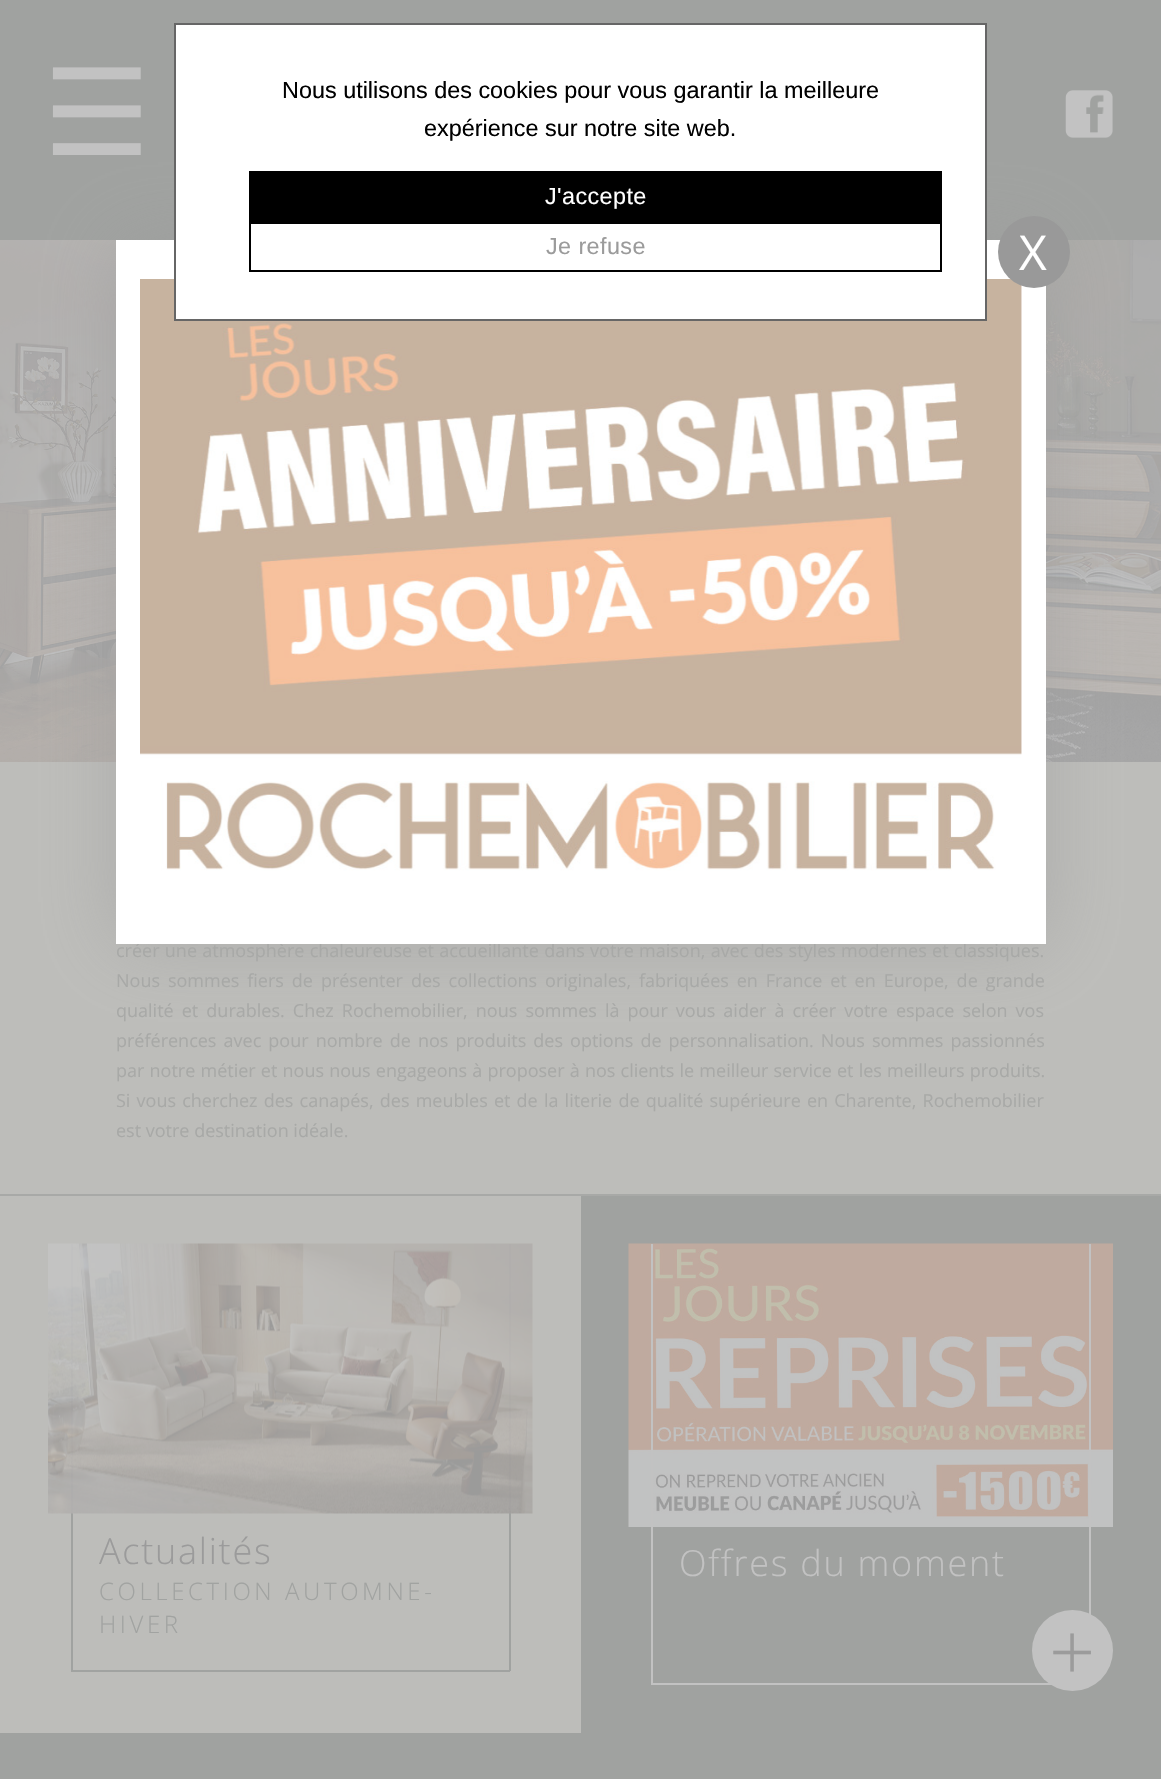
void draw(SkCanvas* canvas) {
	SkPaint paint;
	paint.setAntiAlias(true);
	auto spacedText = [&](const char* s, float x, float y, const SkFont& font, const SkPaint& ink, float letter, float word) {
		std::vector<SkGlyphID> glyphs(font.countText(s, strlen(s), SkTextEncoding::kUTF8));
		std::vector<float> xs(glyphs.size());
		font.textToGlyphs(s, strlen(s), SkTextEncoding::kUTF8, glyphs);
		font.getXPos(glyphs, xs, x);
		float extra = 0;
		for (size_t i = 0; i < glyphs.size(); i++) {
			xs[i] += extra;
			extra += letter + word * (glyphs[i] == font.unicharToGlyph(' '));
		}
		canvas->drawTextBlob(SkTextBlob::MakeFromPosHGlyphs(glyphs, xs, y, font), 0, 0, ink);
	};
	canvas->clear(0xffbdbdba);
	paint.setColor(0xffa0a2a0);
	canvas->drawRect(SkRect::MakeXYWH(0, 0, 1161, 240), paint);
	SkFont f1(fontMgr->matchFamilyStyle("DejaVu Sans", SkFontStyle::Normal()), 120);
	f1.setSubpixel(true);
	paint.setColor(0xffc2c2c2);
	canvas->drawString("☰", 43, 155, f1, paint);
	canvas->drawImageRect(SkImages::DeferredFromEncodedData(SkData::MakeFromFileName("img1.png")), SkRect::MakeXYWH(1065, 90, 48, 48), SkSamplingOptions());
	canvas->drawImageRect(SkImages::DeferredFromEncodedData(SkData::MakeFromFileName("img3.png")), SkRect::MakeXYWH(0, 240, 1161, 522), SkSamplingOptions());
	paint.setColor(0x80999999);
	paint.setMaskFilter(SkMaskFilter::MakeBlur(kNormal_SkBlurStyle, 36));
	canvas->drawRect(SkRect::MakeXYWH(116, 240, 930, 704), paint);
	paint.setMaskFilter(nullptr);
	SkFont f2(fontMgr->matchFamilyStyle("Open Sans", SkFontStyle::Normal()), 18);
	f2.setSubpixel(true);
	paint.setColor(0xffa8a9a7);
	spacedText("créer une atmosphère chaleureuse et accueillante dans votre maison, avec des styles modernes et classiques.", 116, 957, f2, paint, 0, 0.6);
	paint.setColor(0xffffffff);
	canvas->drawRect(SkRect::MakeXYWH(116, 240, 930, 704), paint);
	canvas->drawImageRect(SkImages::DeferredFromEncodedData(SkData::MakeFromFileName("img2.png")), SkRect::MakeXYWH(140, 279, 882, 592), SkSamplingOptions());
	canvas->drawRect(SkRect::MakeXYWH(175, 24, 811, 296), paint);
	paint.setStroke(true);
	paint.setStrokeWidth(2);
	paint.setColor(0xff666666);
	canvas->drawRect(SkRect::MakeXYWH(175, 24, 811, 296), paint);
	SkFont f3(fontMgr->matchFamilyStyle("Liberation Sans", SkFontStyle::Normal()), 23.4);
	f3.setSubpixel(true);
	paint.setStroke(false);
	paint.setColor(0xff000000);
	canvas->drawString("Nous utilisons des cookies pour vous garantir la meilleure", 282, 98, f3, paint);
	canvas->drawString("expérience sur notre site web.", 424, 136, f3, paint);
	canvas->drawRect(SkRect::MakeXYWH(249, 171, 693, 51), paint);
	paint.setColor(0xffffffff);
	spacedText("J'accepte", 545, 204, f3, paint, 0.4, 0);
	paint.setStroke(true);
	paint.setColor(0xff000000);
	canvas->drawRect(SkRect::MakeXYWH(250, 223, 691, 48), paint);
	paint.setStroke(false);
	paint.setColor(0xff9b9b9b);
	spacedText("Je refuse", 546, 254, f3, paint, 0.4, 0);
	paint.setColor(0xff999999);
	canvas->drawCircle(1034, 252, 36, paint);
	SkFont f4(fontMgr->matchFamilyStyle("Open Sans", SkFontStyle::Normal()), 48);
	f4.setSubpixel(true);
	paint.setColor(0xffffffff);
	canvas->drawString("X", 1019, 270, f4, paint);
	paint.setColor(0xffa8a9a7);
	canvas->drawRect(SkRect::MakeXYWH(0, 1194, 1161, 2), paint);
	spacedText("Nous sommes fiers de présenter des collections originales, fabriquées en France et en Europe, de grande", 116, 987, f2, paint, 0, 3.25);
	spacedText("qualité et durables. Chez Rochemobilier, nous sommes là pour vous aider à créer votre espace selon vos", 116, 1017, f2, paint, 0, 3.4);
	spacedText("préférences avec pour nombre de nos produits des options de personnalisation. Nous sommes passionnés", 116, 1047, f2, paint, 0, 2.4);
	spacedText("par notre métier et nous nous engageons à proposer à nos clients le meilleur service et les meilleurs produits.", 116, 1077, f2, paint, 0, 0.5);
	spacedText("Si vous cherchez des canapés, des meubles et de la literie de qualité supérieure en Charente, Rochemobilier", 116, 1107, f2, paint, 0, 1.5);
	canvas->drawString("est votre destination idéale.", 116, 1137, f2, paint);
	paint.setColor(0xffa0a2a0);
	canvas->drawRect(SkRect::MakeXYWH(581, 1196, 580, 537), paint);
	paint.setColor(0xffa1a3a1);
	canvas->drawRect(SkRect::MakeXYWH(71, 1670, 439, 2), paint);
	paint.setColor(0xffa0a2a0);
	canvas->drawRect(SkRect::MakeXYWH(71, 1244, 2, 427), paint);
	canvas->drawRect(SkRect::MakeXYWH(509, 1244, 2, 427), paint);
	canvas->drawImageRect(SkImages::DeferredFromEncodedData(SkData::MakeFromFileName("img4.png")), SkRect::MakeXYWH(48, 1243, 485, 271), SkSamplingOptions());
	SkFont f5(fontMgr->matchFamilyStyle("Open Sans", SkFontStyle(300, SkFontStyle::kNormal_Width, SkFontStyle::kUpright_Slant)), 36);
	f5.setSubpixel(true);
	paint.setColor(0xff9b9b9b);
	spacedText("Actualités", 99, 1564, f5, paint, 1.75, 0);
	SkFont f6(fontMgr->matchFamilyStyle("Open Sans", SkFontStyle(300, SkFontStyle::kNormal_Width, SkFontStyle::kUpright_Slant)), 24);
	f6.setSubpixel(true);
	paint.setColor(0xffa1a3a1);
	spacedText("COLLECTION AUTOMNE-", 99, 1600, f6, paint, 3.6, 0);
	spacedText("HIVER", 99, 1633, f6, paint, 3.6, 0);
	canvas->drawImageRect(SkImages::DeferredFromEncodedData(SkData::MakeFromFileName("img5.png")), SkRect::MakeXYWH(628, 1243, 485, 284), SkSamplingOptions());
	paint.setColor(0xffc2c2c2);
	canvas->drawRect(SkRect::MakeXYWH(651, 1683, 401, 2), paint);
	canvas->drawRect(SkRect::MakeXYWH(651, 1244, 2, 441), paint);
	canvas->drawRect(SkRect::MakeXYWH(1089, 1244, 2, 371), paint);
	spacedText("Offres du moment", 679, 1576, f5, paint, 1.75, 0);
	canvas->drawCircle(1072.5, 1650.5, 40.5, paint);
	SkFont f7(fontMgr->matchFamilyStyle("Open Sans", SkFontStyle(300, SkFontStyle::kNormal_Width, SkFontStyle::kUpright_Slant)), 81);
	f7.setSubpixel(true);
	paint.setColor(0xff9b9b9b);
	canvas->drawString("+", 1049, 1681, f7, paint);
	paint.setColor(0xffa0a2a0);
	canvas->drawRect(SkRect::MakeXYWH(0, 1733, 1161, 46), paint);
}
